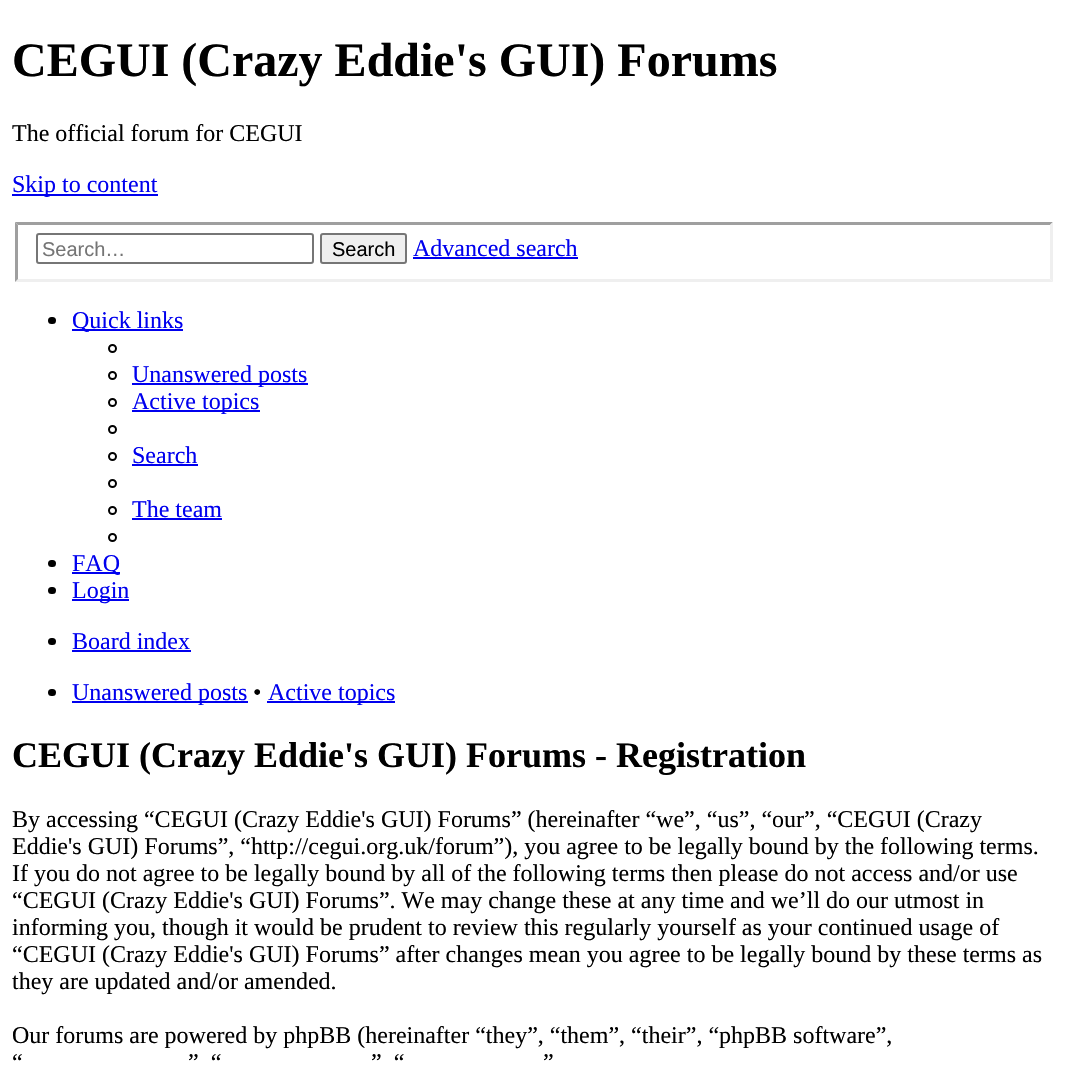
void draw(SkCanvas* canvas) {
	SkPaint paint;
	paint.setAntiAlias(true);
	auto svgPath = [&](const char* data, bool evenOdd = false) {
		SkPath result = *SkParsePath::FromSVGString(data);
		if (evenOdd) result.setFillType(SkPathFillType::kEvenOdd);
		return result;
	};
	canvas->clear(0xffffffff);
	SkFont f1(fontMgr->matchFamilyStyle("Liberation Serif", SkFontStyle::Bold()), 48);
	f1.setSubpixel(true);
	paint.setColor(0xff000000);
	canvas->drawString("CEGUI (Crazy Eddie's GUI) Forums", 12, 76, f1, paint);
	SkFont f2(fontMgr->matchFamilyStyle("Liberation Serif", SkFontStyle::Normal()), 24);
	f2.setSubpixel(true);
	canvas->drawString("The official forum for CEGUI", 12, 141, f2, paint);
	paint.setColor(0xff0000ee);
	canvas->drawRect(SkRect::MakeXYWH(12, 194, 146, 2), paint);
	canvas->drawString("Skip to content", 12, 192, f2, paint);
	paint.setColor(0xff9f9f9f);
	canvas->drawPath(svgPath("M15 222H1053L1050 225H18Z"), paint);
	paint.setColor(0xffefefef);
	canvas->drawPath(svgPath("M1053 222V282L1050 279V225Z"), paint);
	canvas->drawPath(svgPath("M1053 282H15L18 279H1050Z"), paint);
	paint.setColor(0xff9f9f9f);
	canvas->drawPath(svgPath("M15 282V222L18 225V279Z"), paint);
	paint.setStroke(true);
	paint.setStrokeWidth(2);
	paint.setColor(0xff767676);
	canvas->drawRoundRect(SkRect::MakeXYWH(37, 234, 276, 29), 2, 2, paint);
	SkFont f3(fontMgr->matchFamilyStyle("Liberation Sans", SkFontStyle::Normal()), 20);
	f3.setSubpixel(true);
	paint.setStroke(false);
	paint.setColor(0xff757575);
	canvas->drawString("Search…", 42, 256, f3, paint);
	paint.setColor(0xffefefef);
	canvas->drawRoundRect(SkRect::MakeXYWH(321, 234, 85, 29), 2, 2, paint);
	paint.setStroke(true);
	paint.setColor(0xff767676);
	canvas->drawRoundRect(SkRect::MakeXYWH(321, 234, 85, 29), 2, 2, paint);
	paint.setStroke(false);
	paint.setColor(0xff000000);
	canvas->drawString("Search", 332, 256, f3, paint);
	paint.setColor(0xff0000ee);
	canvas->drawString("Advanced search", 413, 256, f2, paint);
	canvas->drawRect(SkRect::MakeXYWH(413, 257, 165, 2), paint);
	paint.setColor(0xff000000);
	canvas->drawRoundRect(SkRect::MakeXYWH(48, 317, 8, 7), 3.5, 3.5, paint);
	paint.setColor(0xff0000ee);
	canvas->drawRect(SkRect::MakeXYWH(72, 329, 111, 2), paint);
	canvas->drawString("Quick links", 72, 328, f2, paint);
	paint.setStroke(true);
	paint.setColor(0xff000000);
	canvas->drawCircle(112.5, 348.5, 3.5, paint);
	canvas->drawCircle(112.5, 375.5, 3.5, paint);
	paint.setStroke(false);
	paint.setColor(0xff0000ee);
	canvas->drawRect(SkRect::MakeXYWH(132, 383, 176, 2), paint);
	canvas->drawString("Unanswered posts", 132, 382, f2, paint);
	paint.setStroke(true);
	paint.setColor(0xff000000);
	canvas->drawCircle(112.5, 402.5, 3.5, paint);
	paint.setStroke(false);
	paint.setColor(0xff0000ee);
	canvas->drawRect(SkRect::MakeXYWH(132, 410, 128, 2), paint);
	canvas->drawString("Active topics", 132, 409, f2, paint);
	paint.setStroke(true);
	paint.setColor(0xff000000);
	canvas->drawCircle(112.5, 429.5, 3.5, paint);
	canvas->drawCircle(112.5, 456.5, 3.5, paint);
	paint.setStroke(false);
	paint.setColor(0xff0000ee);
	canvas->drawString("Search", 132, 463, f2, paint);
	canvas->drawRect(SkRect::MakeXYWH(132, 464, 66, 2), paint);
	paint.setStroke(true);
	paint.setColor(0xff000000);
	canvas->drawCircle(112.5, 483.5, 3.5, paint);
	canvas->drawCircle(112.5, 510.5, 3.5, paint);
	paint.setStroke(false);
	paint.setColor(0xff0000ee);
	canvas->drawString("The team", 132, 517, f2, paint);
	canvas->drawRect(SkRect::MakeXYWH(132, 518, 90, 2), paint);
	paint.setStroke(true);
	paint.setColor(0xff000000);
	canvas->drawCircle(112.5, 537.5, 3.5, paint);
	paint.setStroke(false);
	canvas->drawRoundRect(SkRect::MakeXYWH(48, 560, 8, 7), 3.5, 3.5, paint);
	paint.setColor(0xff0000ee);
	canvas->drawRect(SkRect::MakeXYWH(72, 572, 48, 2), paint);
	canvas->drawString("FAQ", 72, 571, f2, paint);
	paint.setColor(0xff000000);
	canvas->drawRoundRect(SkRect::MakeXYWH(48, 587, 8, 7), 3.5, 3.5, paint);
	paint.setColor(0xff0000ee);
	canvas->drawRect(SkRect::MakeXYWH(72, 599, 57, 2), paint);
	canvas->drawString("Login", 72, 598, f2, paint);
	paint.setColor(0xff000000);
	canvas->drawRoundRect(SkRect::MakeXYWH(48, 638, 8, 7), 3.5, 3.5, paint);
	paint.setColor(0xff0000ee);
	canvas->drawString("Board index", 72, 649, f2, paint);
	canvas->drawRect(SkRect::MakeXYWH(72, 650, 119, 2), paint);
	paint.setColor(0xff000000);
	canvas->drawRoundRect(SkRect::MakeXYWH(48, 689, 8, 7), 3.5, 3.5, paint);
	paint.setColor(0xff0000ee);
	canvas->drawRect(SkRect::MakeXYWH(72, 701, 176, 2), paint);
	canvas->drawString("Unanswered posts", 72, 700, f2, paint);
	paint.setColor(0xff000000);
	canvas->drawString("•", 253, 700, f2, paint);
	paint.setColor(0xff0000ee);
	canvas->drawRect(SkRect::MakeXYWH(267, 701, 128, 2), paint);
	canvas->drawString("Active topics", 268, 700, f2, paint);
	SkFont f4(fontMgr->matchFamilyStyle("Liberation Serif", SkFontStyle::Bold()), 36);
	f4.setSubpixel(true);
	paint.setColor(0xff000000);
	canvas->drawString("CEGUI (Crazy Eddie's GUI) Forums - Registration", 12, 767, f4, paint);
	canvas->drawString("By accessing “CEGUI (Crazy Eddie's GUI) Forums” (hereinafter “we”, “us”, “our”, “CEGUI (Crazy", 12, 827, f2, paint);
	canvas->drawString("Eddie's GUI) Forums”, “http://cegui.org.uk/forum”), you agree to be legally bound by the following terms.", 12, 854, f2, paint);
	canvas->drawString("If you do not agree to be legally bound by all of the following terms then please do not access and/or use", 12, 881, f2, paint);
	canvas->drawString("“CEGUI (Crazy Eddie's GUI) Forums”. We may change these at any time and we’ll do our utmost in", 12, 908, f2, paint);
	canvas->drawString("informing you, though it would be prudent to review this regularly yourself as your continued usage of", 12, 935, f2, paint);
	canvas->drawString("“CEGUI (Crazy Eddie's GUI) Forums” after changes mean you agree to be legally bound by these terms as", 12, 962, f2, paint);
	canvas->drawString("they are updated and/or amended.", 12, 989, f2, paint);
	canvas->drawString("Our forums are powered by phpBB (hereinafter “they”, “them”, “their”, “phpBB software”,", 12, 1043, f2, paint);
	canvas->drawString("“", 12, 1070, f2, paint);
	canvas->drawString("”, “", 188, 1070, f2, paint);
	canvas->drawString("”, “", 371, 1070, f2, paint);
	canvas->drawString("”", 543, 1070, f2, paint);
}
